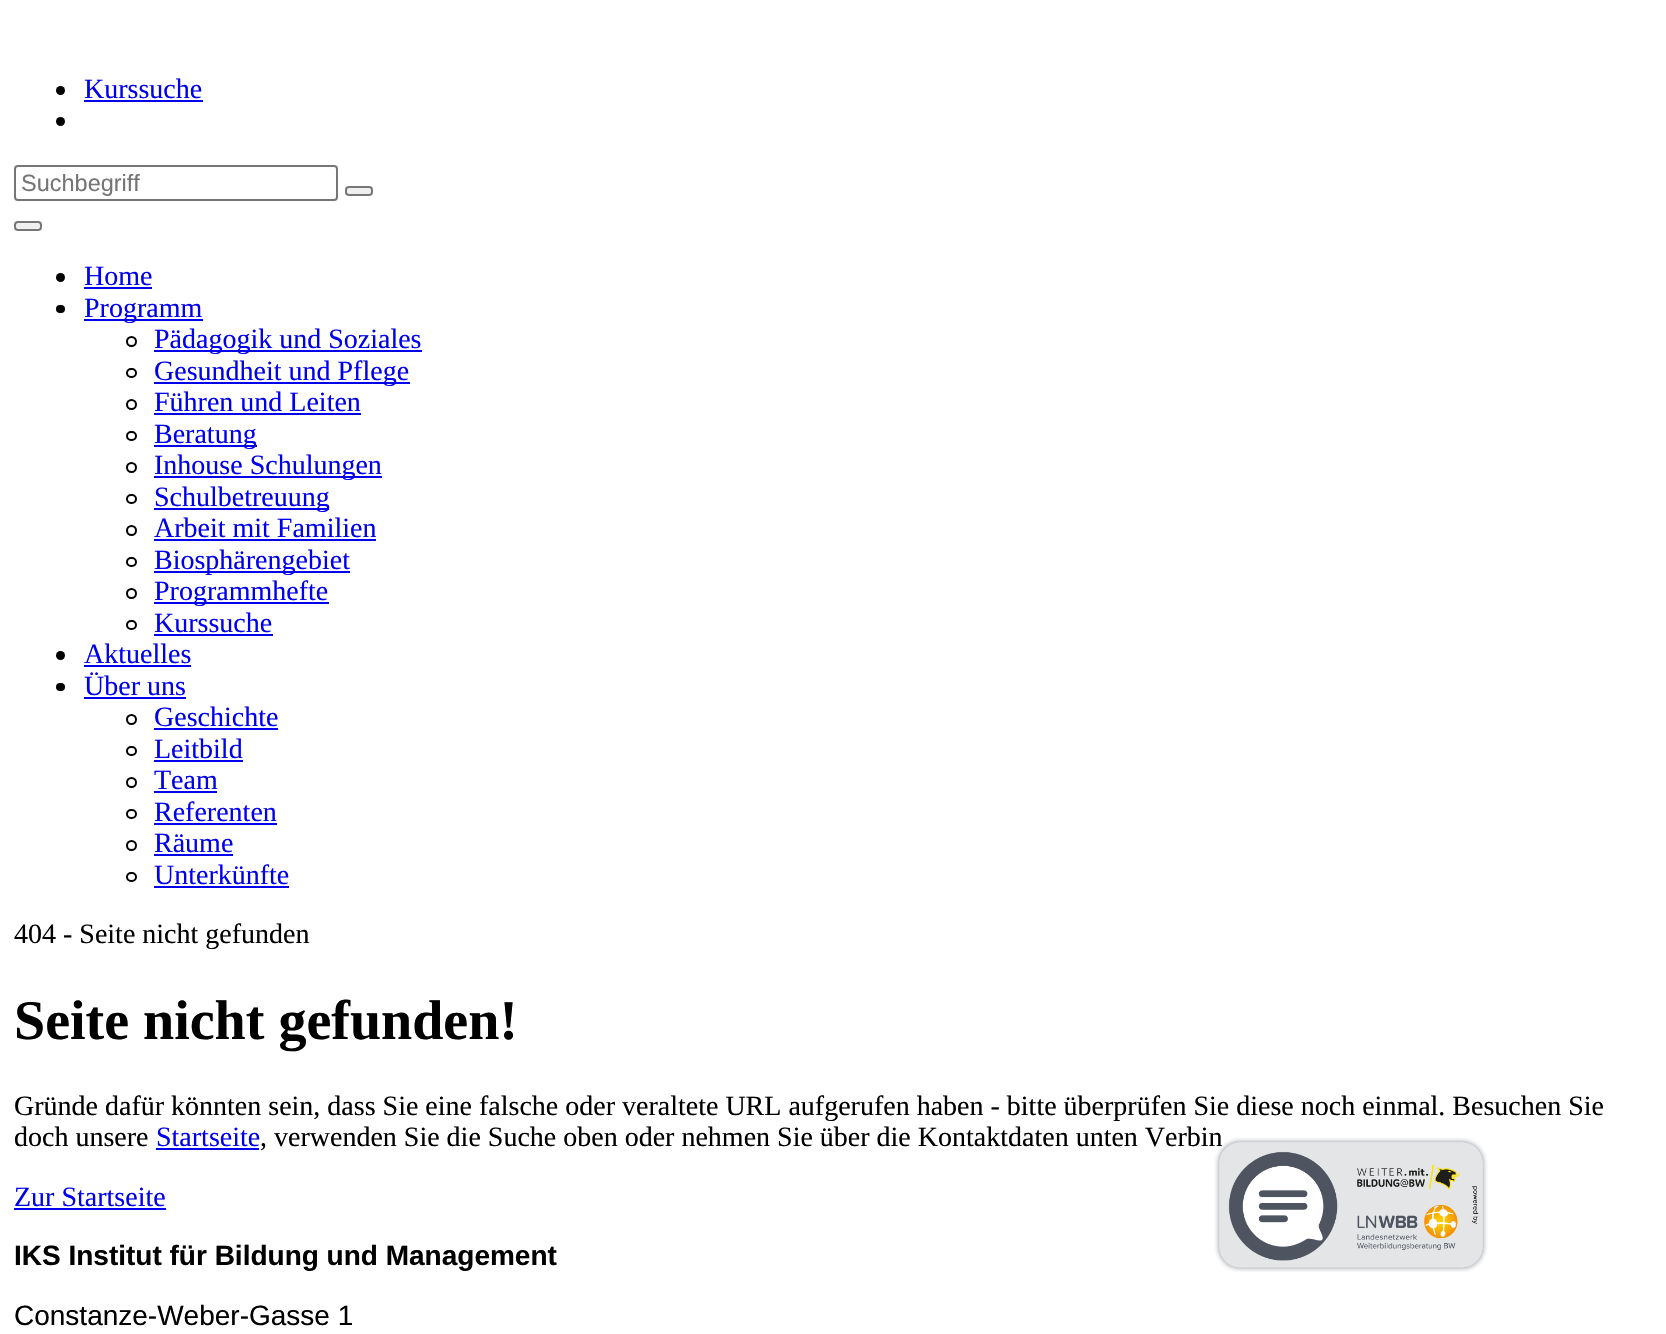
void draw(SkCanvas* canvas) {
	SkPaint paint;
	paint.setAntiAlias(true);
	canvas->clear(0xffffffff);
	paint.setColor(0xff000000);
	canvas->drawCircle(60.5, 90.5, 4.5, paint);
	SkFont f1(fontMgr->matchFamilyStyle("Liberation Serif", SkFontStyle::Normal()), 28);
	f1.setSubpixel(true);
	paint.setColor(0xff0000ee);
	canvas->drawString("Kurssuche", 84, 98, f1, paint);
	canvas->drawRect(SkRect::MakeXYWH(84, 100, 119, 2), paint);
	paint.setColor(0xff000000);
	canvas->drawCircle(60.5, 121.5, 4.5, paint);
	paint.setStroke(true);
	paint.setStrokeWidth(2);
	paint.setColor(0xff767676);
	canvas->drawRoundRect(SkRect::MakeXYWH(15, 166, 322, 34), 3, 3, paint);
	SkFont f2(fontMgr->matchFamilyStyle("Liberation Sans", SkFontStyle::Normal()), 23.5);
	f2.setSubpixel(true);
	paint.setStroke(false);
	paint.setColor(0xff757575);
	canvas->drawString("Suchbegriff", 21, 191, f2, paint);
	paint.setColor(0xffefefef);
	canvas->drawRoundRect(SkRect::MakeXYWH(346, 187, 26, 8), 3, 3, paint);
	paint.setStroke(true);
	paint.setColor(0xff767676);
	canvas->drawRoundRect(SkRect::MakeXYWH(346, 187, 26, 8), 3, 3, paint);
	paint.setStroke(false);
	paint.setColor(0xffefefef);
	canvas->drawRoundRect(SkRect::MakeXYWH(15, 222, 26, 8), 3, 3, paint);
	paint.setStroke(true);
	paint.setColor(0xff767676);
	canvas->drawRoundRect(SkRect::MakeXYWH(15, 222, 26, 8), 3, 3, paint);
	paint.setStroke(false);
	paint.setColor(0xff000000);
	canvas->drawCircle(60.5, 277.5, 4.5, paint);
	paint.setColor(0xff0000ee);
	canvas->drawString("Home", 84, 285, f1, paint);
	canvas->drawRect(SkRect::MakeXYWH(84, 287, 68, 2), paint);
	paint.setColor(0xff000000);
	canvas->drawRoundRect(SkRect::MakeXYWH(56, 305, 9, 8), 4, 4, paint);
	paint.setColor(0xff0000ee);
	canvas->drawRect(SkRect::MakeXYWH(84, 319, 119, 2), paint);
	canvas->drawString("Programm", 84, 317, f1, paint);
	paint.setStroke(true);
	paint.setColor(0xff000000);
	canvas->drawCircle(131.5, 341.5, 4.5, paint);
	paint.setStroke(false);
	paint.setColor(0xff0000ee);
	canvas->drawRect(SkRect::MakeXYWH(154, 350, 268, 2), paint);
	canvas->drawString("Pädagogik und Soziales", 154, 348, f1, paint);
	paint.setStroke(true);
	paint.setColor(0xff000000);
	canvas->drawRoundRect(SkRect::MakeXYWH(127, 369, 9, 8), 4, 4, paint);
	paint.setStroke(false);
	paint.setColor(0xff0000ee);
	canvas->drawRect(SkRect::MakeXYWH(154, 382, 256, 2), paint);
	canvas->drawString("Gesundheit und Pflege", 154, 380, f1, paint);
	paint.setStroke(true);
	paint.setColor(0xff000000);
	canvas->drawCircle(131.5, 404.5, 4.5, paint);
	paint.setStroke(false);
	paint.setColor(0xff0000ee);
	canvas->drawString("Führen und Leiten", 154, 411, f1, paint);
	canvas->drawRect(SkRect::MakeXYWH(154, 413, 207, 2), paint);
	paint.setStroke(true);
	paint.setColor(0xff000000);
	canvas->drawRoundRect(SkRect::MakeXYWH(127, 432, 9, 8), 4, 4, paint);
	paint.setStroke(false);
	paint.setColor(0xff0000ee);
	canvas->drawRect(SkRect::MakeXYWH(154, 445, 103, 2), paint);
	canvas->drawString("Beratung", 154, 443, f1, paint);
	paint.setStroke(true);
	paint.setColor(0xff000000);
	canvas->drawCircle(131.5, 467.5, 4.5, paint);
	paint.setStroke(false);
	paint.setColor(0xff0000ee);
	canvas->drawRect(SkRect::MakeXYWH(154, 476, 228, 2), paint);
	canvas->drawString("Inhouse Schulungen", 154, 474, f1, paint);
	paint.setStroke(true);
	paint.setColor(0xff000000);
	canvas->drawRoundRect(SkRect::MakeXYWH(127, 495, 9, 8), 4, 4, paint);
	paint.setStroke(false);
	paint.setColor(0xff0000ee);
	canvas->drawRect(SkRect::MakeXYWH(154, 508, 175, 2), paint);
	canvas->drawString("Schulbetreuung", 154, 506, f1, paint);
	paint.setStroke(true);
	paint.setColor(0xff000000);
	canvas->drawCircle(131.5, 530.5, 4.5, paint);
	paint.setStroke(false);
	paint.setColor(0xff0000ee);
	canvas->drawString("Arbeit mit Familien", 154, 537, f1, paint);
	canvas->drawRect(SkRect::MakeXYWH(154, 539, 222, 2), paint);
	paint.setStroke(true);
	paint.setColor(0xff000000);
	canvas->drawRoundRect(SkRect::MakeXYWH(127, 558, 9, 8), 4, 4, paint);
	paint.setStroke(false);
	paint.setColor(0xff0000ee);
	canvas->drawRect(SkRect::MakeXYWH(154, 571, 196, 2), paint);
	canvas->drawString("Biosphärengebiet", 154, 569, f1, paint);
	paint.setStroke(true);
	paint.setColor(0xff000000);
	canvas->drawCircle(131.5, 593.5, 4.5, paint);
	paint.setStroke(false);
	paint.setColor(0xff0000ee);
	canvas->drawRect(SkRect::MakeXYWH(154, 602, 175, 2), paint);
	canvas->drawString("Programmhefte", 154, 600, f1, paint);
	paint.setStroke(true);
	paint.setColor(0xff000000);
	canvas->drawRoundRect(SkRect::MakeXYWH(127, 621, 9, 8), 4, 4, paint);
	paint.setStroke(false);
	paint.setColor(0xff0000ee);
	canvas->drawString("Kurssuche", 154, 632, f1, paint);
	canvas->drawRect(SkRect::MakeXYWH(154, 634, 119, 2), paint);
	paint.setColor(0xff000000);
	canvas->drawCircle(60.5, 655.5, 4.5, paint);
	paint.setColor(0xff0000ee);
	canvas->drawString("Aktuelles", 84, 663, f1, paint);
	canvas->drawRect(SkRect::MakeXYWH(84, 665, 107, 2), paint);
	paint.setColor(0xff000000);
	canvas->drawRoundRect(SkRect::MakeXYWH(56, 683, 9, 8), 4, 4, paint);
	paint.setColor(0xff0000ee);
	canvas->drawString("Über uns", 84, 695, f1, paint);
	canvas->drawRect(SkRect::MakeXYWH(84, 697, 102, 2), paint);
	paint.setStroke(true);
	paint.setColor(0xff000000);
	canvas->drawCircle(131.5, 719.5, 4.5, paint);
	paint.setStroke(false);
	paint.setColor(0xff0000ee);
	canvas->drawString("Geschichte", 154, 726, f1, paint);
	canvas->drawRect(SkRect::MakeXYWH(154, 728, 124, 2), paint);
	paint.setStroke(true);
	paint.setColor(0xff000000);
	canvas->drawRoundRect(SkRect::MakeXYWH(127, 747, 9, 8), 4, 4, paint);
	paint.setStroke(false);
	paint.setColor(0xff0000ee);
	canvas->drawString("Leitbild", 154, 758, f1, paint);
	canvas->drawRect(SkRect::MakeXYWH(154, 760, 89, 2), paint);
	paint.setStroke(true);
	paint.setColor(0xff000000);
	canvas->drawCircle(131.5, 782.5, 4.5, paint);
	paint.setStroke(false);
	paint.setColor(0xff0000ee);
	canvas->drawString("Team", 154, 789, f1, paint);
	canvas->drawRect(SkRect::MakeXYWH(154, 791, 63, 2), paint);
	paint.setStroke(true);
	paint.setColor(0xff000000);
	canvas->drawRoundRect(SkRect::MakeXYWH(127, 810, 9, 8), 4, 4, paint);
	paint.setStroke(false);
	paint.setColor(0xff0000ee);
	canvas->drawString("Referenten", 154, 821, f1, paint);
	canvas->drawRect(SkRect::MakeXYWH(154, 823, 123, 2), paint);
	paint.setStroke(true);
	paint.setColor(0xff000000);
	canvas->drawCircle(131.5, 845.5, 4.5, paint);
	paint.setStroke(false);
	paint.setColor(0xff0000ee);
	canvas->drawString("Räume", 154, 852, f1, paint);
	canvas->drawRect(SkRect::MakeXYWH(154, 854, 79, 2), paint);
	paint.setStroke(true);
	paint.setColor(0xff000000);
	canvas->drawRoundRect(SkRect::MakeXYWH(127, 873, 9, 8), 4, 4, paint);
	paint.setStroke(false);
	paint.setColor(0xff0000ee);
	canvas->drawString("Unterkünfte", 154, 884, f1, paint);
	canvas->drawRect(SkRect::MakeXYWH(154, 886, 135, 2), paint);
	paint.setColor(0xff000000);
	canvas->drawString("404 - Seite nicht gefunden", 14, 943, f1, paint);
	SkFont f3(fontMgr->matchFamilyStyle("Liberation Serif", SkFontStyle::Bold()), 56);
	f3.setSubpixel(true);
	canvas->drawString("Seite nicht gefunden!", 14, 1039, f3, paint);
	canvas->drawString("Gründe dafür könnten sein, dass Sie eine falsche oder veraltete URL aufgerufen haben - bitte überprüfen Sie diese noch einmal. Besuchen Sie", 14, 1115, f1, paint);
	canvas->drawString("doch unsere", 14, 1146, f1, paint);
	paint.setColor(0xff0000ee);
	canvas->drawString("Startseite", 156, 1146, f1, paint);
	canvas->drawRect(SkRect::MakeXYWH(156, 1148, 103, 2), paint);
	paint.setColor(0xff000000);
	canvas->drawString(", verwenden Sie die Suche oben oder nehmen Sie über die Kontaktdaten unten Verbin", 260, 1146, f1, paint);
	paint.setColor(0xff0000ee);
	canvas->drawString("Zur Startseite", 14, 1206, f1, paint);
	canvas->drawRect(SkRect::MakeXYWH(14, 1208, 152, 2), paint);
	canvas->drawImageRect(SkImages::DeferredFromEncodedData(SkData::MakeFromFileName("img1.png")), SkRect::MakeXYWH(1214, 1137, 274, 135), SkSamplingOptions());
	SkFont f4(fontMgr->matchFamilyStyle("Liberation Sans", SkFontStyle::Bold()), 28);
	f4.setSubpixel(true);
	paint.setColor(0xff000000);
	canvas->drawString("IKS Institut für Bildung und Management", 14, 1265, f4, paint);
	SkFont f5(fontMgr->matchFamilyStyle("Liberation Sans", SkFontStyle::Normal()), 28);
	f5.setSubpixel(true);
	canvas->drawString("Constanze-Weber-Gasse 1", 14, 1325, f5, paint);
}
